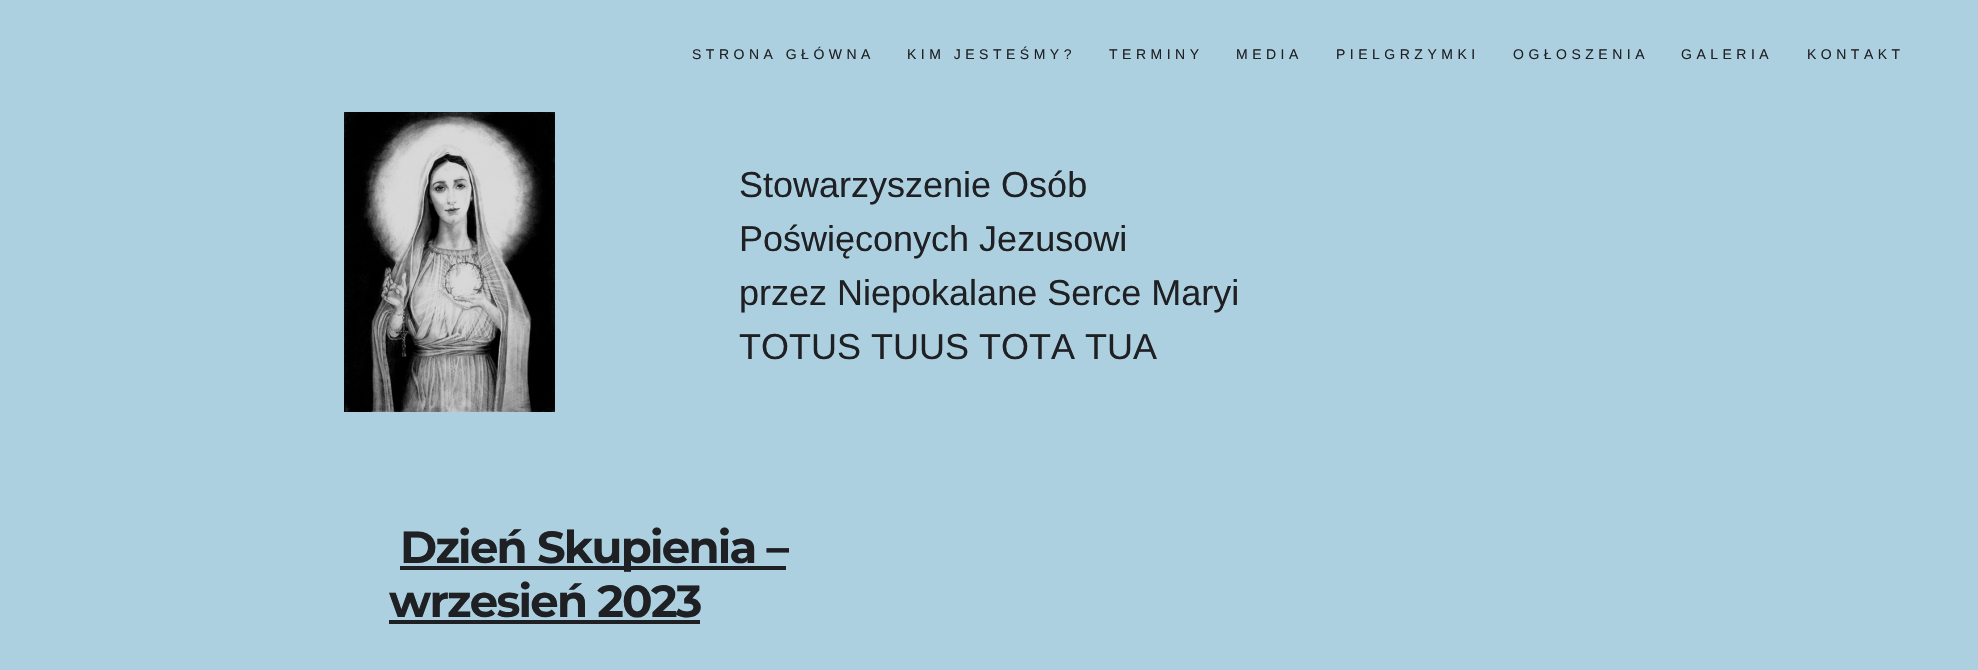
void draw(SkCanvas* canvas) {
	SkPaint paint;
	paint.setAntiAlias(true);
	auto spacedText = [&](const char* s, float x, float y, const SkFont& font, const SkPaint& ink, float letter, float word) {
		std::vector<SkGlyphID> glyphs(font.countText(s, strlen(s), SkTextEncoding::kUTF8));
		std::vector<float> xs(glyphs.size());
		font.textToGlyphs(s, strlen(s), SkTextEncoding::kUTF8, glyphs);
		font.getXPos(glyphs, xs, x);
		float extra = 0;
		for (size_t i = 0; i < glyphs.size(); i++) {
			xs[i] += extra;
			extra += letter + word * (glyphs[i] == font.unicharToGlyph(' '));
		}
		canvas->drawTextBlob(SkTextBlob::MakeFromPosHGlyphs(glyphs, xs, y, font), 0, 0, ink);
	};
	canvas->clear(0xffacd0e0);
	SkFont f1(fontMgr->matchFamilyStyle("Liberation Sans", SkFontStyle::Normal()), 14);
	f1.setSubpixel(true);
	paint.setColor(0xff1f2023);
	spacedText("STRONA GŁÓWNA", 692, 59, f1, paint, 4.5, 0);
	spacedText("KIM JESTEŚMY?", 907, 59, f1, paint, 4.5, 0);
	spacedText("TERMINY", 1109, 59, f1, paint, 4.5, 0);
	spacedText("MEDIA", 1236, 59, f1, paint, 4.5, 0);
	spacedText("PIELGRZYMKI", 1336, 59, f1, paint, 4.5, 0);
	spacedText("OGŁOSZENIA", 1513, 59, f1, paint, 4.5, 0);
	spacedText("GALERIA", 1681, 59, f1, paint, 4.5, 0);
	spacedText("KONTAKT", 1807, 59, f1, paint, 4.5, 0);
	canvas->drawImageRect(SkImages::DeferredFromEncodedData(SkData::MakeFromFileName("img1.png")), SkRect::MakeXYWH(344, 112, 211, 300), SkSamplingOptions());
	SkFont f2(fontMgr->matchFamilyStyle("Liberation Sans", SkFontStyle::Normal()), 36);
	f2.setSubpixel(true);
	canvas->drawString("Stowarzyszenie Osób", 739, 197, f2, paint);
	canvas->drawString("Poświęconych Jezusowi", 739, 251, f2, paint);
	canvas->drawString("przez Niepokalane Serce Maryi", 739, 305, f2, paint);
	canvas->drawString("TOTUS TUUS TOTA TUA", 739, 359, f2, paint);
	canvas->drawRect(SkRect::MakeXYWH(400, 566, 386, 4), paint);
	SkFont f3(fontMgr->matchFamilyStyle("Montserrat", SkFontStyle(100, SkFontStyle::kNormal_Width, SkFontStyle::kUpright_Slant)), 45);
	f3.setSubpixel(true);
	spacedText("Dzień Skupienia –", 400, 563, f3, paint, -1.75, 0);
	spacedText("wrzesień 2023", 389, 617, f3, paint, -1.75, 0);
	canvas->drawRect(SkRect::MakeXYWH(389, 620, 311, 4), paint);
}
